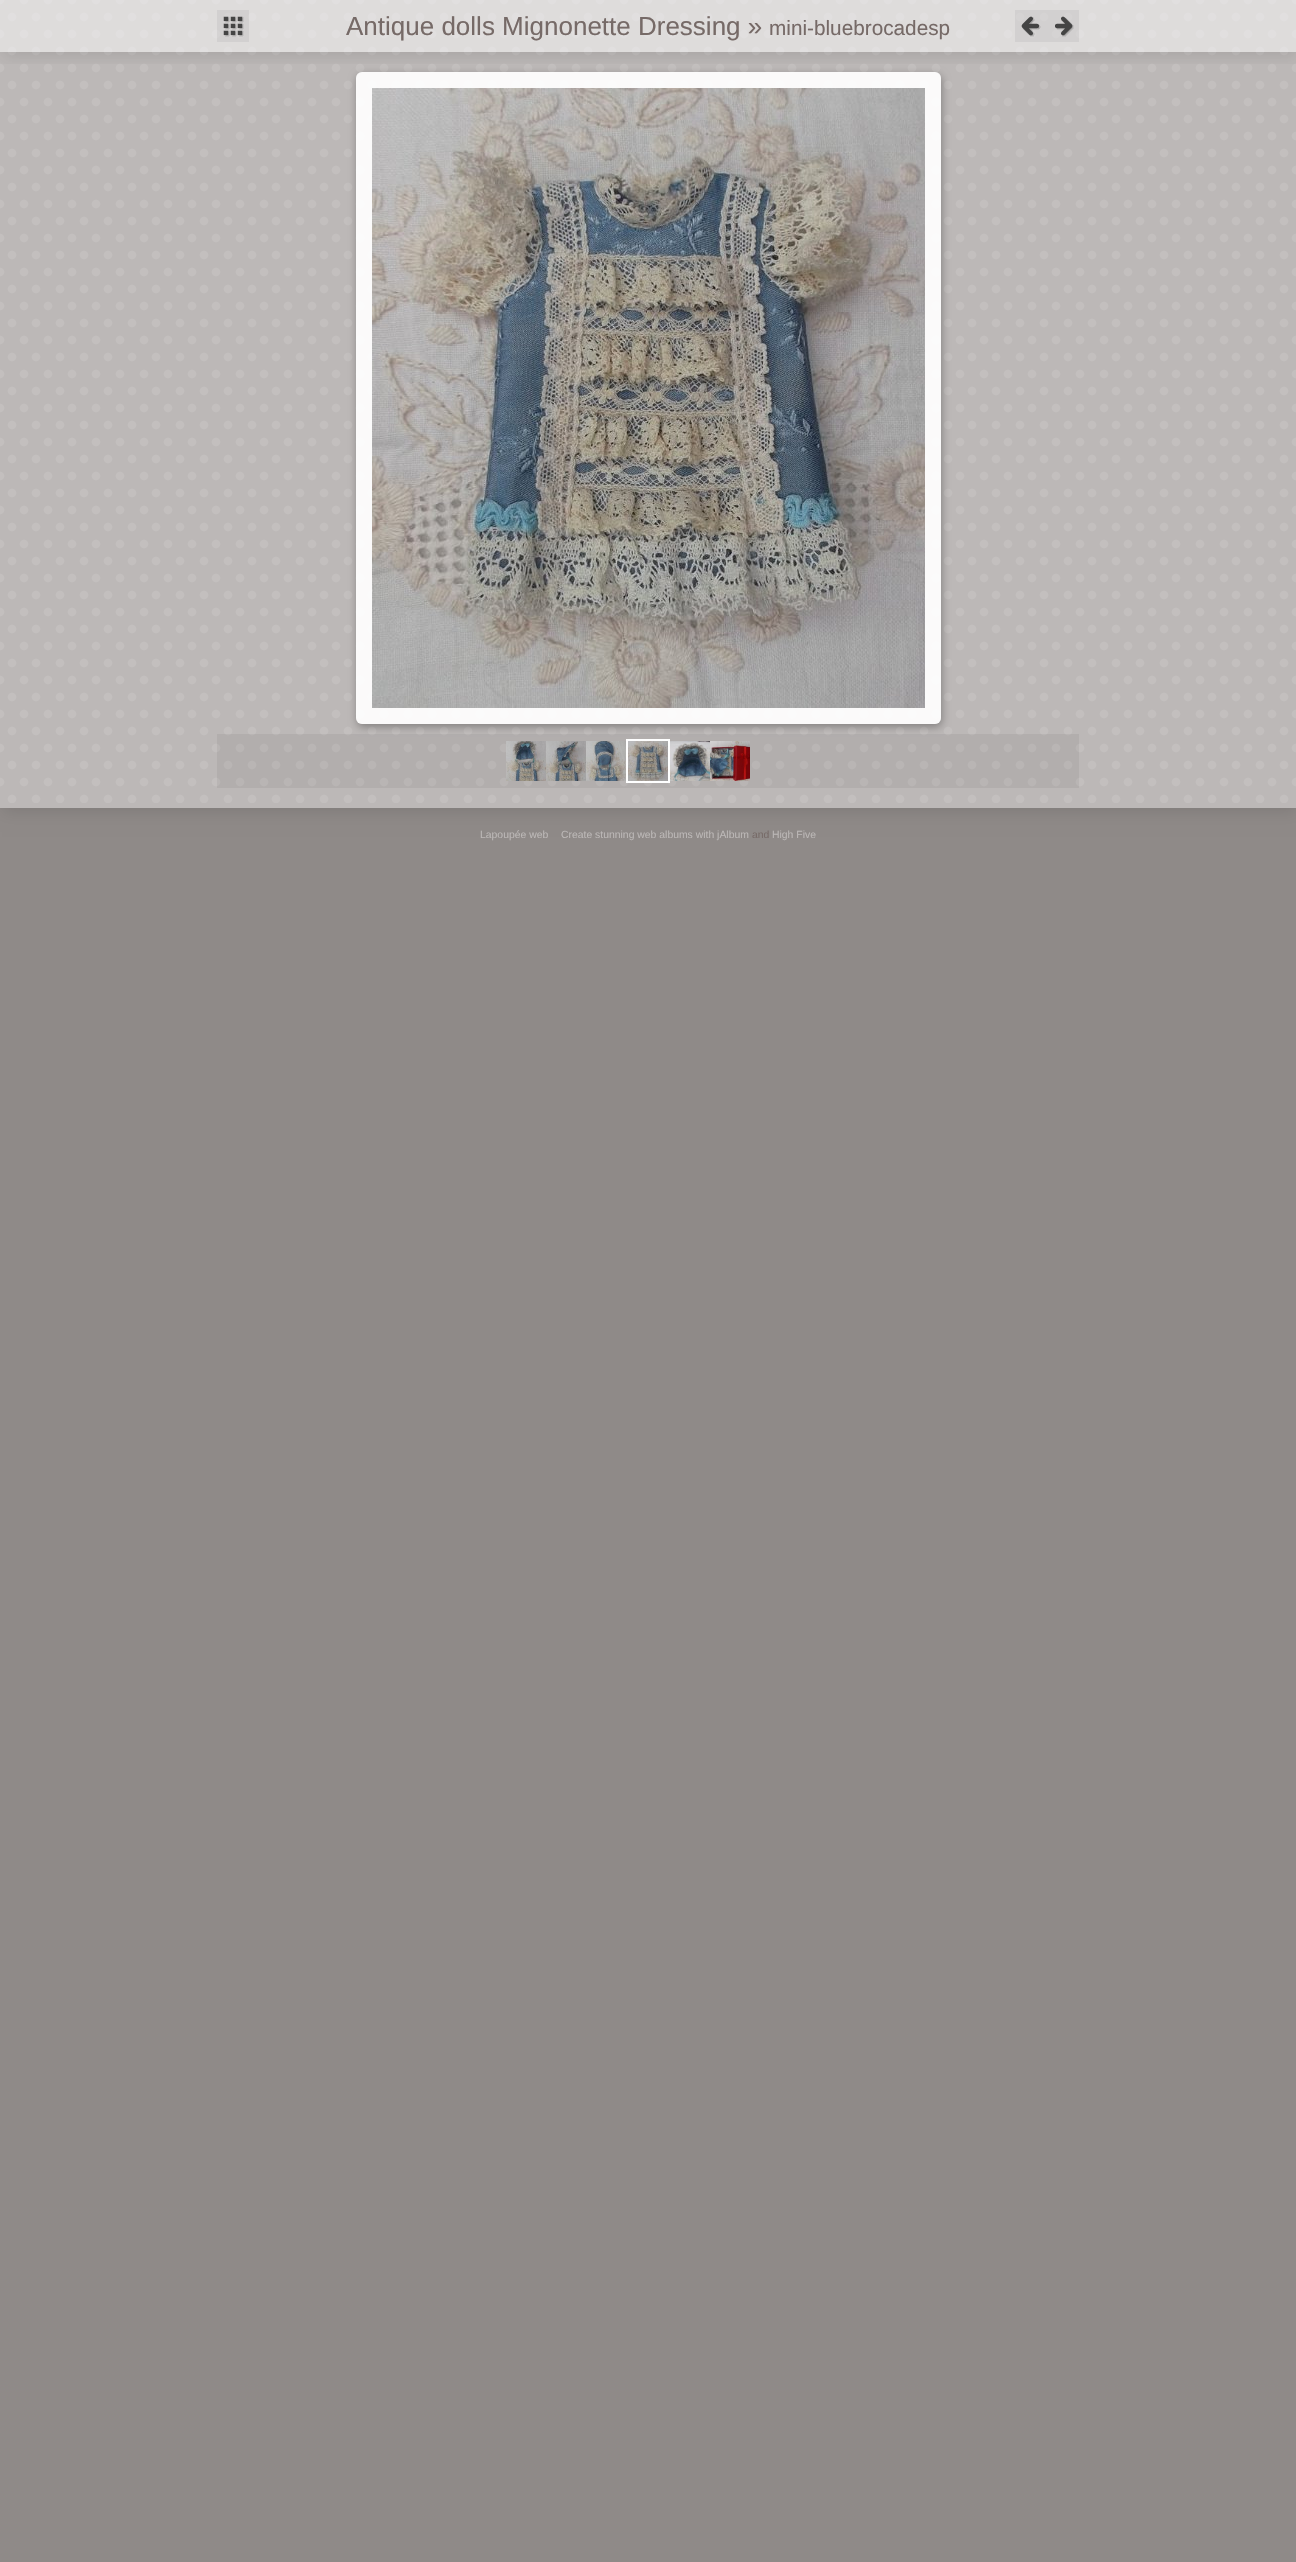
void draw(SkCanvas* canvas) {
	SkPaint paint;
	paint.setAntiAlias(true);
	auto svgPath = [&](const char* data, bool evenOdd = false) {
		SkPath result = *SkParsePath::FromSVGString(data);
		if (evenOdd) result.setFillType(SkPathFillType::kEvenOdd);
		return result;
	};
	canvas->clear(0xff8f8a88);
	paint.setColor(0x1a000000);
	paint.setMaskFilter(SkMaskFilter::MakeBlur(kNormal_SkBlurStyle, 8));
	canvas->drawRect(SkRect::MakeXYWH(2, 5, 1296, 808), paint);
	paint.setMaskFilter(nullptr);
	paint.setColor(0xffbcb8b7);
	canvas->drawRect(SkRect::MakeXYWH(0, 0, 1296, 808), paint);
	canvas->drawImageRect(SkImages::DeferredFromEncodedData(SkData::MakeFromFileName("img1.png")), SkRect::MakeXYWH(0, 0, 1296, 803), SkSamplingOptions());
	canvas->save();
	canvas->clipRect(SkRect::MakeXYWH(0, 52, 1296, 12));
	paint.setColor(0x1a000000);
	paint.setMaskFilter(SkMaskFilter::MakeBlur(kNormal_SkBlurStyle, 8));
	canvas->drawRect(SkRect::MakeXYWH(2, 5, 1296, 52), paint);
	paint.setMaskFilter(nullptr);
	canvas->restore();
	paint.setColor(0x80ffffff);
	canvas->drawRect(SkRect::MakeXYWH(0, 0, 1296, 52), paint);
	paint.setColor(0x0d000000);
	canvas->drawRect(SkRect::MakeXYWH(217, 10, 32, 32), paint);
	canvas->drawImageRect(SkImages::DeferredFromEncodedData(SkData::MakeFromFileName("img2.png")), SkRect::MakeXYWH(223, 16, 21, 21), SkSamplingOptions());
	SkFont f1(fontMgr->matchFamilyStyle("Liberation Sans", SkFontStyle::Normal()), 26);
	f1.setSubpixel(true);
	paint.setColor(0xff766a67);
	canvas->drawString("Antique dolls Mignonette Dressing »", 346, 35, f1, paint);
	SkFont f2(fontMgr->matchFamilyStyle("Liberation Sans", SkFontStyle::Normal()), 20.75);
	f2.setSubpixel(true);
	canvas->drawString("mini-bluebrocadesp", 769, 35, f2, paint);
	paint.setColor(0x0d000000);
	canvas->drawRect(SkRect::MakeXYWH(1015, 10, 64, 32), paint);
	canvas->drawImageRect(SkImages::DeferredFromEncodedData(SkData::MakeFromFileName("img3.png")), SkRect::MakeXYWH(1021, 16, 20, 21), SkSamplingOptions());
	canvas->drawImageRect(SkImages::DeferredFromEncodedData(SkData::MakeFromFileName("img4.png")), SkRect::MakeXYWH(1055, 16, 19, 21), SkSamplingOptions());
	canvas->save();
	canvas->clipPath(svgPath("M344 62H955V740H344ZM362 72H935C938.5 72 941 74.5 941 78V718C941 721.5 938.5 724 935 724H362C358.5 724 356 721.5 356 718V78C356 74.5 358.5 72 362 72Z", true), true);
	paint.setColor(0x4d000000);
	paint.setMaskFilter(SkMaskFilter::MakeBlur(kNormal_SkBlurStyle, 4));
	canvas->drawRoundRect(SkRect::MakeXYWH(357, 75, 585, 652), 6, 6, paint);
	paint.setMaskFilter(nullptr);
	canvas->restore();
	paint.setColor(0xedffffff);
	canvas->drawRoundRect(SkRect::MakeXYWH(356, 72, 585, 652), 6, 6, paint);
	canvas->drawImageRect(SkImages::DeferredFromEncodedData(SkData::MakeFromFileName("img5.png")), SkRect::MakeXYWH(372, 88, 553, 620), SkSamplingOptions());
	paint.setColor(0x0d000000);
	canvas->drawRect(SkRect::MakeXYWH(217, 734, 862, 54), paint);
	canvas->drawImageRect(SkImages::DeferredFromEncodedData(SkData::MakeFromFileName("img6.png")), SkRect::MakeXYWH(506, 741, 40, 40), SkSamplingOptions());
	canvas->drawImageRect(SkImages::DeferredFromEncodedData(SkData::MakeFromFileName("img7.png")), SkRect::MakeXYWH(546, 741, 40, 40), SkSamplingOptions());
	canvas->drawImageRect(SkImages::DeferredFromEncodedData(SkData::MakeFromFileName("img8.png")), SkRect::MakeXYWH(586, 741, 40, 40), SkSamplingOptions());
	paint.setStroke(true);
	paint.setStrokeWidth(2);
	paint.setColor(0xffffffff);
	canvas->drawRect(SkRect::MakeXYWH(627, 740, 42, 42), paint);
	canvas->drawImageRect(SkImages::DeferredFromEncodedData(SkData::MakeFromFileName("img9.png")), SkRect::MakeXYWH(628, 741, 40, 40), SkSamplingOptions());
	canvas->drawImageRect(SkImages::DeferredFromEncodedData(SkData::MakeFromFileName("img10.png")), SkRect::MakeXYWH(670, 741, 40, 40), SkSamplingOptions());
	canvas->drawImageRect(SkImages::DeferredFromEncodedData(SkData::MakeFromFileName("img11.png")), SkRect::MakeXYWH(710, 741, 40, 40), SkSamplingOptions());
	SkFont f3(fontMgr->matchFamilyStyle("Liberation Sans", SkFontStyle::Normal()), 10.4);
	f3.setSubpixel(true);
	paint.setStroke(false);
	paint.setColor(0xffbcb8b7);
	canvas->drawString("Lapoupée web", 480, 838, f3, paint);
	canvas->drawString("Create stunning web albums with jAlbum", 561, 838, f3, paint);
	paint.setColor(0xff766a67);
	canvas->drawString("and", 752, 838, f3, paint);
	paint.setColor(0xffbcb8b7);
	canvas->drawString("High Five", 772, 838, f3, paint);
}
